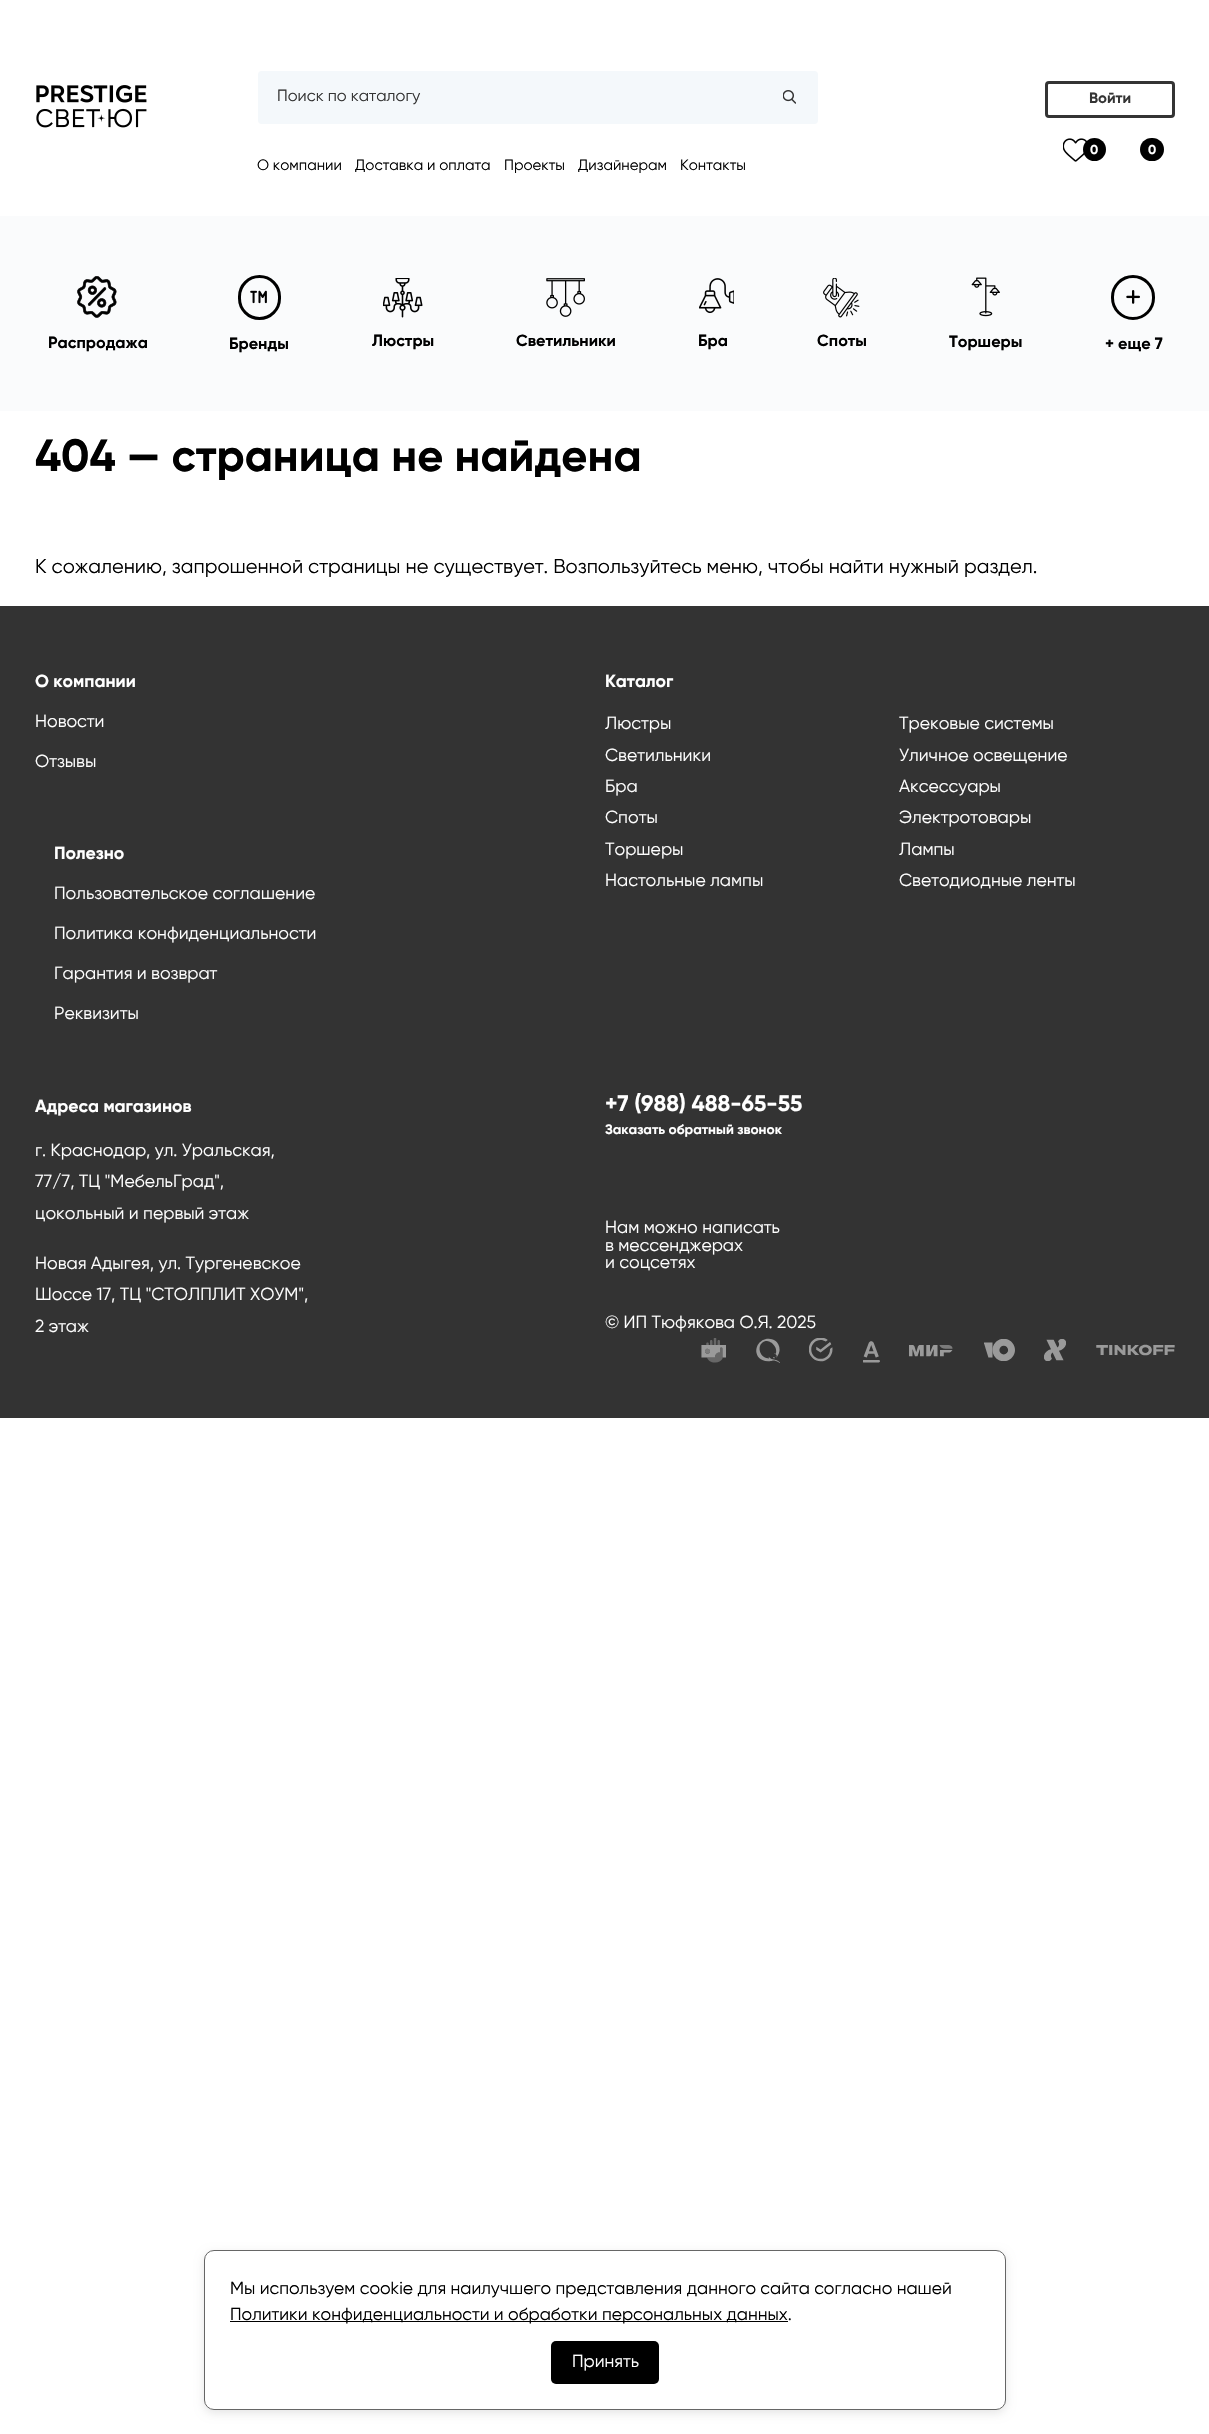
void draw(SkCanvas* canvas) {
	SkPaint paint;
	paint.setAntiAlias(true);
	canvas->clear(0xffffffff);
	canvas->drawImageRect(SkImages::DeferredFromEncodedData(SkData::MakeFromFileName("img1.png")), SkRect::MakeXYWH(36, 85, 111, 43), SkSamplingOptions());
	paint.setColor(0xfff4f8fb);
	canvas->drawRoundRect(SkRect::MakeXYWH(258, 71, 560, 53), 4, 4, paint);
	SkFont f1(fontMgr->matchFamilyStyle("Gilroy", SkFontStyle::Normal()), 16.25);
	f1.setSubpixel(true);
	paint.setColor(0xff343434);
	canvas->drawString("Поиск по каталогу", 277, 101, f1, paint);
	canvas->drawImageRect(SkImages::DeferredFromEncodedData(SkData::MakeFromFileName("img2.png")), SkRect::MakeXYWH(783, 90, 13, 14), SkSamplingOptions());
	SkFont f2(fontMgr->matchFamilyStyle("Gilroy", SkFontStyle::Normal()), 15);
	f2.setSubpixel(true);
	paint.setColor(0xff000000);
	canvas->drawString("О компании", 257, 170, f2, paint);
	canvas->drawString("Доставка и оплата", 355, 170, f2, paint);
	canvas->drawString("Проекты", 504, 170, f2, paint);
	canvas->drawString("Дизайнерам", 578, 170, f2, paint);
	canvas->drawString("Контакты", 680, 170, f2, paint);
	paint.setStroke(true);
	paint.setStrokeWidth(3);
	paint.setColor(0xff343434);
	canvas->drawRoundRect(SkRect::MakeXYWH(1046.5, 82.5, 127, 34), 2.5, 2.5, paint);
	SkFont f3(fontMgr->matchFamilyStyle("Gilroy", SkFontStyle::Bold()), 15);
	f3.setSubpixel(true);
	paint.setStroke(false);
	canvas->drawString("Войти", 1089, 103, f3, paint);
	canvas->drawImageRect(SkImages::DeferredFromEncodedData(SkData::MakeFromFileName("img3.png")), SkRect::MakeXYWH(1063, 138, 24, 24), SkSamplingOptions());
	paint.setColor(0xff000000);
	canvas->drawCircle(1094.5, 149.5, 11.5, paint);
	SkFont f4(fontMgr->matchFamilyStyle("Gilroy", SkFontStyle::Bold()), 13);
	f4.setSubpixel(true);
	paint.setColor(0xffffffff);
	canvas->drawString("0", 1090, 154, f4, paint);
	paint.setColor(0xff000000);
	canvas->drawRoundRect(SkRect::MakeXYWH(1140, 138, 24, 23), 11.5, 11.5, paint);
	paint.setColor(0xffffffff);
	canvas->drawString("0", 1148, 154, f4, paint);
	paint.setColor(0xfffafbfc);
	canvas->drawRect(SkRect::MakeXYWH(0, 216, 1209, 195), paint);
	canvas->drawImageRect(SkImages::DeferredFromEncodedData(SkData::MakeFromFileName("img4.png")), SkRect::MakeXYWH(77, 276, 40, 42), SkSamplingOptions());
	SkFont f5(fontMgr->matchFamilyStyle("Gilroy", SkFontStyle::Bold()), 16.25);
	f5.setSubpixel(true);
	paint.setColor(0xff000000);
	canvas->drawString("Распродажа", 48, 348, f5, paint);
	paint.setStroke(true);
	canvas->drawRoundRect(SkRect::MakeXYWH(239.5, 276.5, 40, 42), 20, 20, paint);
	canvas->drawImageRect(SkImages::DeferredFromEncodedData(SkData::MakeFromFileName("img5.png")), SkRect::MakeXYWH(250, 290, 17, 14), SkSamplingOptions());
	paint.setStroke(false);
	canvas->drawString("Бренды", 229, 349, f5, paint);
	canvas->drawImageRect(SkImages::DeferredFromEncodedData(SkData::MakeFromFileName("img6.png")), SkRect::MakeXYWH(383, 278, 40, 40), SkSamplingOptions());
	canvas->drawString("Люстры", 372, 346, f5, paint);
	canvas->drawImageRect(SkImages::DeferredFromEncodedData(SkData::MakeFromFileName("img7.png")), SkRect::MakeXYWH(546, 278, 39, 39), SkSamplingOptions());
	canvas->drawString("Светильники", 516, 346, f5, paint);
	canvas->drawImageRect(SkImages::DeferredFromEncodedData(SkData::MakeFromFileName("img8.png")), SkRect::MakeXYWH(699, 278, 35, 36), SkSamplingOptions());
	canvas->drawString("Бра", 698, 346, f5, paint);
	canvas->drawImageRect(SkImages::DeferredFromEncodedData(SkData::MakeFromFileName("img9.png")), SkRect::MakeXYWH(823, 278, 37, 40), SkSamplingOptions());
	canvas->drawString("Споты", 817, 346, f5, paint);
	canvas->drawImageRect(SkImages::DeferredFromEncodedData(SkData::MakeFromFileName("img10.png")), SkRect::MakeXYWH(971, 277, 29, 40), SkSamplingOptions());
	canvas->drawString("Торшеры", 949, 347, f5, paint);
	paint.setStroke(true);
	canvas->drawRoundRect(SkRect::MakeXYWH(1112.5, 276.5, 41, 42), 20.5, 20.5, paint);
	canvas->drawImageRect(SkImages::DeferredFromEncodedData(SkData::MakeFromFileName("img11.png")), SkRect::MakeXYWH(1126, 290, 14, 14), SkSamplingOptions());
	paint.setStroke(false);
	canvas->drawString("+ еще 7", 1105, 349, f5, paint);
	SkFont f6(fontMgr->matchFamilyStyle("Gilroy", SkFontStyle::Bold()), 45);
	f6.setSubpixel(true);
	canvas->drawString("404 — страница не найдена", 35, 471, f6, paint);
	SkFont f7(fontMgr->matchFamilyStyle("Gilroy", SkFontStyle::Normal()), 20);
	f7.setSubpixel(true);
	canvas->drawString("К сожалению, запрошенной страницы не существует. Возпользуйтесь меню, чтобы найти нужный раздел.", 35, 573, f7, paint);
	paint.setColor(0xff333333);
	canvas->drawRect(SkRect::MakeXYWH(0, 606, 1209, 812), paint);
	SkFont f8(fontMgr->matchFamilyStyle("Gilroy", SkFontStyle::Bold()), 17.6);
	f8.setSubpixel(true);
	paint.setColor(0xffffffff);
	canvas->drawString("О компании", 35, 687, f8, paint);
	SkFont f9(fontMgr->matchFamilyStyle("Gilroy", SkFontStyle::Normal()), 17.6);
	f9.setSubpixel(true);
	canvas->drawString("Новости", 35, 727, f9, paint);
	canvas->drawString("Отзывы", 35, 767, f9, paint);
	canvas->drawString("Полезно", 54, 859, f8, paint);
	canvas->drawString("Пользовательское соглашение", 54, 899, f9, paint);
	canvas->drawString("Политика конфиденциальности", 54, 939, f9, paint);
	canvas->drawString("Гарантия и возврат", 54, 979, f9, paint);
	canvas->drawString("Реквизиты", 54, 1019, f9, paint);
	canvas->drawString("Каталог", 605, 687, f8, paint);
	canvas->drawString("Люстры", 605, 729, f9, paint);
	canvas->drawString("Трековые системы", 899, 729, f9, paint);
	canvas->drawString("Светильники", 605, 761, f9, paint);
	canvas->drawString("Уличное освещение", 899, 761, f9, paint);
	canvas->drawString("Бра", 605, 792, f9, paint);
	canvas->drawString("Аксессуары", 899, 792, f9, paint);
	canvas->drawString("Споты", 605, 823, f9, paint);
	canvas->drawString("Электротовары", 899, 823, f9, paint);
	canvas->drawString("Торшеры", 605, 855, f9, paint);
	canvas->drawString("Лампы", 899, 855, f9, paint);
	canvas->drawString("Настольные лампы", 605, 886, f9, paint);
	canvas->drawString("Светодиодные ленты", 899, 886, f9, paint);
	canvas->drawString("Адреса магазинов", 35, 1112, f8, paint);
	canvas->drawString("г. Краснодар, ул. Уральская,", 35, 1156, f9, paint);
	canvas->drawString("77/7, ТЦ \"МебельГрад\",", 35, 1187, f9, paint);
	canvas->drawString("цокольный и первый этаж", 35, 1219, f9, paint);
	canvas->drawString("Новая Адыгея, ул. Тургеневское", 35, 1269, f9, paint);
	canvas->drawString("Шоссе 17, ТЦ \"СТОЛПЛИТ ХОУМ\",", 35, 1300, f9, paint);
	canvas->drawString("2 этаж", 35, 1332, f9, paint);
	SkFont f10(fontMgr->matchFamilyStyle("Gilroy", SkFontStyle::Bold()), 22.5);
	f10.setSubpixel(true);
	canvas->drawString("+7 (988) 488-65-55", 605, 1111, f10, paint);
	SkFont f11(fontMgr->matchFamilyStyle("Gilroy", SkFontStyle::Bold()), 13.75);
	f11.setSubpixel(true);
	canvas->drawString("Заказать обратный звонок", 605, 1134, f11, paint);
	canvas->drawString("Нам можно написать", 605, 1233, f9, paint);
	canvas->drawString("в мессенджерах", 605, 1251, f9, paint);
	canvas->drawString("и соцсетях", 605, 1268, f9, paint);
	canvas->drawString("© ИП Тюфякова О.Я. 2025", 605, 1328, f9, paint);
	canvas->drawImageRect(SkImages::DeferredFromEncodedData(SkData::MakeFromFileName("img12.png")), SkRect::MakeXYWH(701, 1338, 25, 25), SkSamplingOptions());
	canvas->drawImageRect(SkImages::DeferredFromEncodedData(SkData::MakeFromFileName("img13.png")), SkRect::MakeXYWH(756, 1338, 24, 25), SkSamplingOptions());
	canvas->drawImageRect(SkImages::DeferredFromEncodedData(SkData::MakeFromFileName("img14.png")), SkRect::MakeXYWH(809, 1338, 24, 24), SkSamplingOptions());
	canvas->drawImageRect(SkImages::DeferredFromEncodedData(SkData::MakeFromFileName("img15.png")), SkRect::MakeXYWH(863, 1341, 17, 22), SkSamplingOptions());
	canvas->drawImageRect(SkImages::DeferredFromEncodedData(SkData::MakeFromFileName("img16.png")), SkRect::MakeXYWH(909, 1345, 44, 12), SkSamplingOptions());
	canvas->drawImageRect(SkImages::DeferredFromEncodedData(SkData::MakeFromFileName("img17.png")), SkRect::MakeXYWH(984, 1339, 31, 22), SkSamplingOptions());
	canvas->drawImageRect(SkImages::DeferredFromEncodedData(SkData::MakeFromFileName("img18.png")), SkRect::MakeXYWH(1044, 1339, 22, 22), SkSamplingOptions());
	canvas->drawImageRect(SkImages::DeferredFromEncodedData(SkData::MakeFromFileName("img19.png")), SkRect::MakeXYWH(1096, 1344, 79, 12), SkSamplingOptions());
	paint.setColor(0x1a000000);
	paint.setMaskFilter(SkMaskFilter::MakeBlur(kNormal_SkBlurStyle, 5));
	canvas->drawRoundRect(SkRect::MakeXYWH(204, 2253, 802, 160), 10, 10, paint);
	paint.setMaskFilter(nullptr);
	paint.setColor(0xffffffff);
	canvas->drawRoundRect(SkRect::MakeXYWH(204.5, 2250.5, 801, 159), 9.5, 9.5, paint);
	paint.setStroke(true);
	paint.setStrokeWidth(1);
	paint.setColor(0xff666666);
	canvas->drawRoundRect(SkRect::MakeXYWH(204.5, 2250.5, 801, 159), 9.5, 9.5, paint);
	SkFont f12(fontMgr->matchFamilyStyle("Gilroy", SkFontStyle::Normal()), 17.5);
	f12.setSubpixel(true);
	paint.setStroke(false);
	paint.setColor(0xff000000);
	canvas->drawString("Мы используем cookie для наилучшего представления данного сайта согласно нашей", 230, 2294, f12, paint);
	canvas->drawRect(SkRect::MakeXYWH(230, 2321, 558, 1), paint);
	canvas->drawString("Политики конфиденциальности и обработки персональных данных.", 230, 2320, f12, paint);
	canvas->drawRoundRect(SkRect::MakeXYWH(551, 2341, 108, 43), 5, 5, paint);
	paint.setColor(0xffffffff);
	canvas->drawString("Принять", 572, 2367, f12, paint);
}
